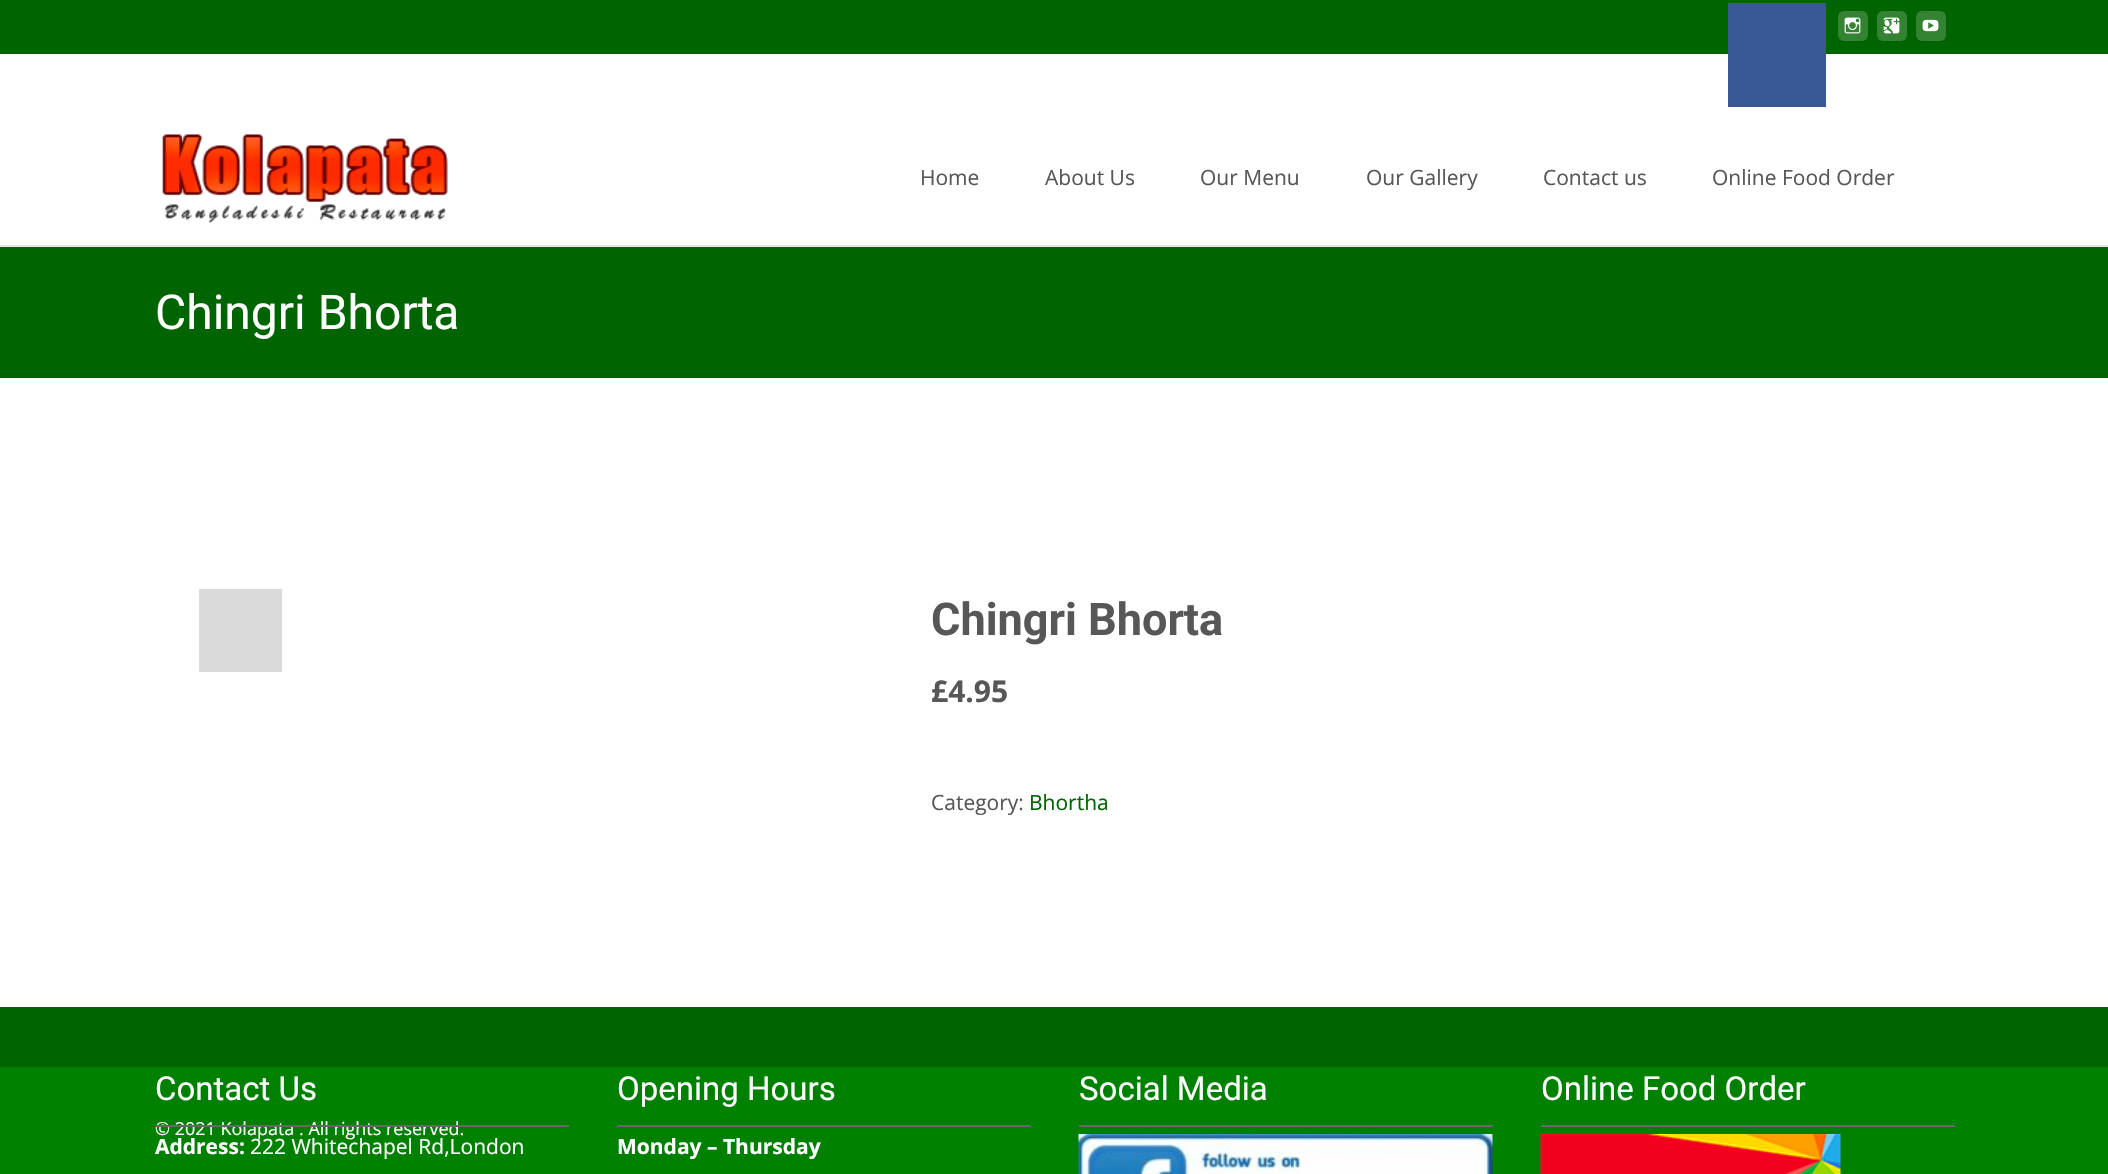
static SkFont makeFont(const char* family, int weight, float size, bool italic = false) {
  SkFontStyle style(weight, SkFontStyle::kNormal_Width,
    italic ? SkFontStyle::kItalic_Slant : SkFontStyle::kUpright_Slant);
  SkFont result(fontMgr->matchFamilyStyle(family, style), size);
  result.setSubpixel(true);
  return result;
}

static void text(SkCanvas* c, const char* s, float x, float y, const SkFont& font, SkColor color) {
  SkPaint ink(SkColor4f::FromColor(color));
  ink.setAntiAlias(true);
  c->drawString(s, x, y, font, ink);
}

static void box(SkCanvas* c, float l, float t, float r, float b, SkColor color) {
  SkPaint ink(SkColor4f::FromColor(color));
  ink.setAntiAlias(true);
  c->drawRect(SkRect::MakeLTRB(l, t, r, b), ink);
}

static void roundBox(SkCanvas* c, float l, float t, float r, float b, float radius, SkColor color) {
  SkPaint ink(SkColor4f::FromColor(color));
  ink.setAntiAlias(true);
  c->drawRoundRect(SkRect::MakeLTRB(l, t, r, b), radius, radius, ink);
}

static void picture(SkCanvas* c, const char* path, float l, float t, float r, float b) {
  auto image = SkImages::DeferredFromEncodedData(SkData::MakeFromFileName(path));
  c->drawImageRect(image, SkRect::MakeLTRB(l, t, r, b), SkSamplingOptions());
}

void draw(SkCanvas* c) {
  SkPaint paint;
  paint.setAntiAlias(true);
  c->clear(0xffffffff);
  box(c, 0, 0, 2108, 54, 0xff006400);
  box(c, 1728, 3, 1826, 107, 0xff3a5795);
  roundBox(c, 1838, 11, 1868, 41, 6, 0xff338333);
  picture(c, "img_01.png", 1844, 17, 1861, 34);
  roundBox(c, 1877, 11, 1907, 41, 6, 0xff338333);
  picture(c, "img_02.png", 1883, 17, 1900, 34);
  roundBox(c, 1916, 11, 1946, 41, 6, 0xff338333);
  picture(c, "img_03.png", 1922, 19, 1939, 32);
  box(c, 0, 245, 2108, 247, 0xffe7e7e7);
  picture(c, "img_04.png", 162, 134, 448, 223);
  SkFont face1 = makeFont("Open Sans", 400, 21);
  text(c, "Home", 920, 185, face1, 0xff575757);
  text(c, "About Us", 1045, 185, face1, 0xff575757);
  text(c, "Our Menu", 1200, 185, face1, 0xff575757);
  text(c, "Our Gallery", 1366, 185, face1, 0xff575757);
  text(c, "Contact us", 1543, 185, face1, 0xff575757);
  text(c, "Online Food Order", 1712, 185, face1, 0xff575757);
  box(c, 0, 247, 2108, 378, 0xff006400);
  SkFont face2 = makeFont("Roboto", 400, 48);
  text(c, "Chingri Bhorta", 155, 329, face2, 0xffffffff);
  box(c, 199, 589, 282, 672, 0xffdadada);
  SkFont face3 = makeFont("Roboto", 700, 45);
  text(c, "Chingri Bhorta", 931, 635, face3, 0xff575757);
  SkFont face4 = makeFont("Open Sans", 700, 30);
  text(c, "£4.95", 931, 702, face4, 0xff575757);
  text(c, "Category:", 931, 810, face1, 0xff575757);
  text(c, "Bhortha", 1029, 810, face1, 0xff006400);
  box(c, 0, 1067, 2108, 1174, 0xff008000);
  box(c, 0, 1007, 2108, 1067, 0xff006400);
  SkFont face5 = makeFont("Open Sans", 400, 18);
  text(c, "© 2021 Kolapata . All rights reserved.", 155, 1135, face5, 0xffffffff);
  box(c, 155, 1125, 569, 1127, 0xff676767);
  SkFont face6 = makeFont("Roboto", 400, 33);
  text(c, "Contact Us", 155, 1100, face6, 0xffffffff);
  SkFont face7 = makeFont("Open Sans", 700, 21);
  text(c, "Address:", 155, 1154, face7, 0xffffffff);
  text(c, "222 Whitechapel Rd,London", 250, 1154, face1, 0xffffffff);
  box(c, 617, 1125, 1031, 1127, 0xff676767);
  text(c, "Opening Hours", 617, 1100, face6, 0xffffffff);
  text(c, "Monday – Thursday", 617, 1154, face7, 0xffffffff);
  box(c, 1079, 1125, 1493, 1127, 0xff676767);
  text(c, "Social Media", 1079, 1100, face6, 0xffffffff);
  picture(c, "img_05.png", 1078, 1134, 1493, 1174);
  box(c, 1541, 1125, 1955, 1127, 0xff676767);
  text(c, "Online Food Order", 1541, 1100, face6, 0xffffffff);
  picture(c, "img_06.png", 1540, 1134, 1841, 1174);
}
